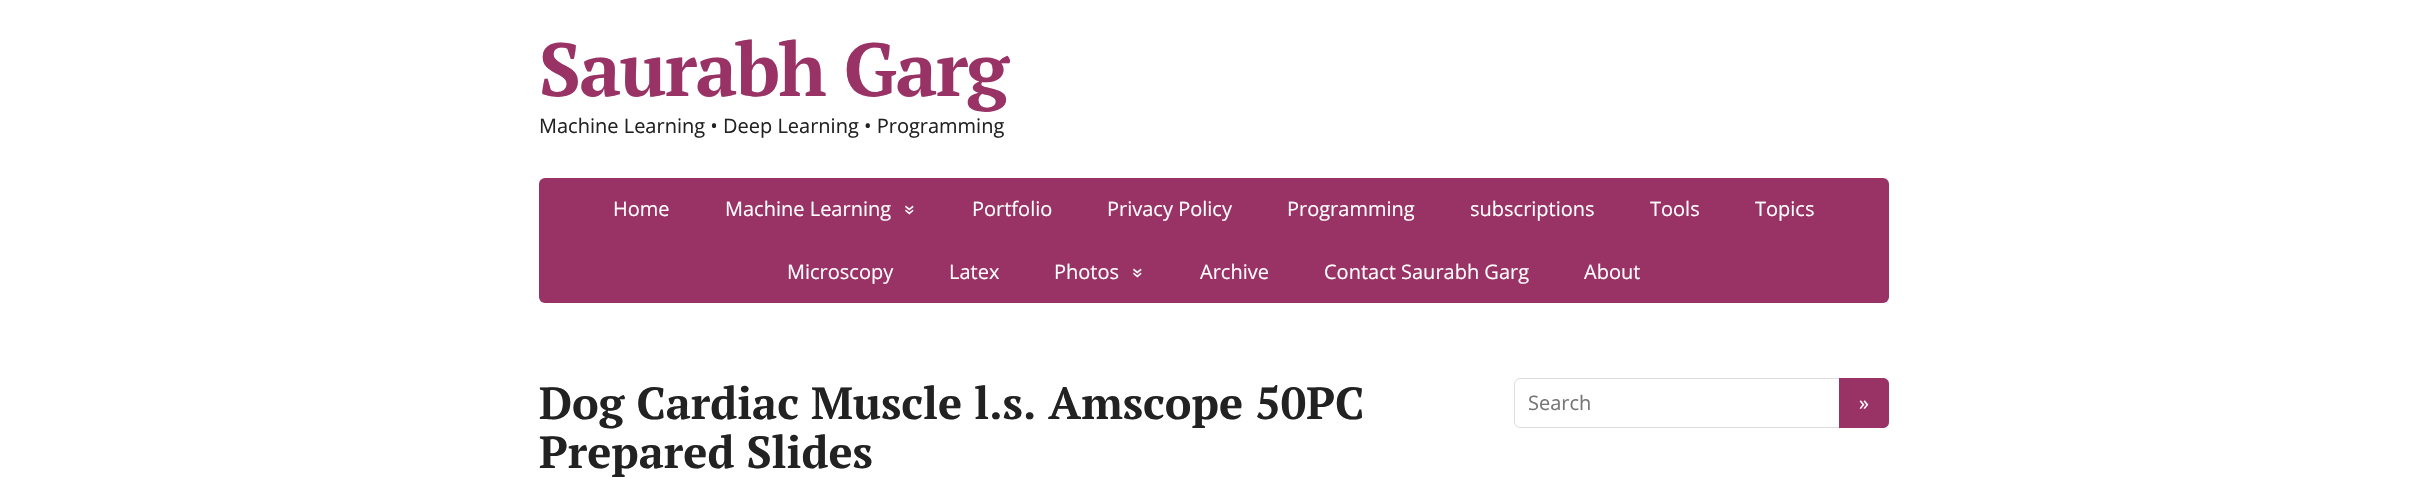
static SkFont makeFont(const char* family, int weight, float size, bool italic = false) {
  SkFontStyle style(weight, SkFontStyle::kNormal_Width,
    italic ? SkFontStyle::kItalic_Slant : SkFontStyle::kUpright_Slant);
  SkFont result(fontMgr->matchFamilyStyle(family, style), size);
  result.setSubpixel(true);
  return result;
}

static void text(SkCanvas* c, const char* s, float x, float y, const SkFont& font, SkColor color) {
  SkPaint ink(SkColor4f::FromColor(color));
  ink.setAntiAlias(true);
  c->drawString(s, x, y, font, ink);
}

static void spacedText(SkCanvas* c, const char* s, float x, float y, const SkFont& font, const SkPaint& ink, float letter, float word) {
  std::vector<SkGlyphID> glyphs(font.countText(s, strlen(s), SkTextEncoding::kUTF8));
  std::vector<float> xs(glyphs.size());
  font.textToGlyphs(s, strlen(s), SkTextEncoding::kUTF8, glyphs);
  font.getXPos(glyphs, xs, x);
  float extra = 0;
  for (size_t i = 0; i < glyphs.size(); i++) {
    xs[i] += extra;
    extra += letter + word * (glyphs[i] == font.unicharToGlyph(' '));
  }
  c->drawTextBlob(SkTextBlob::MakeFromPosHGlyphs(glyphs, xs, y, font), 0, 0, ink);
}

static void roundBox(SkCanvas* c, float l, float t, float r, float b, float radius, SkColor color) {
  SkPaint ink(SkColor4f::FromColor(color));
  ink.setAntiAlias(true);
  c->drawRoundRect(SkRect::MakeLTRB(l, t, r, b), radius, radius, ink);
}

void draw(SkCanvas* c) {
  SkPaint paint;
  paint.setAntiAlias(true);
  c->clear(0xffffffff);
  SkFont face1 = makeFont("PT Serif", 700, 75);
  paint.setColor(0xff993366);
  spacedText(c, "Saurabh Garg", 539, 96, face1, paint, -1.5f, 0);
  SkFont face2 = makeFont("Open Sans", 400, 20);
  text(c, "Machine Learning • Deep Learning • Programming", 539, 133, face2, 0xff222222);
  roundBox(c, 539, 178, 1889, 303, 6, 0xff993366);
  text(c, "Home", 613, 216, face2, 0xffffffff);
  text(c, "Machine Learning", 725, 216, face2, 0xffffffff);
  c->save();
  c->rotate(90, 904, 205);
  text(c, "»", 904, 205, face2, 0xffffffff);
  c->restore();
  text(c, "Portfolio", 972, 216, face2, 0xffffffff);
  text(c, "Privacy Policy", 1107, 216, face2, 0xffffffff);
  text(c, "Programming", 1287, 216, face2, 0xffffffff);
  text(c, "subscriptions", 1470, 216, face2, 0xffffffff);
  text(c, "Tools", 1650, 216, face2, 0xffffffff);
  text(c, "Topics", 1755, 216, face2, 0xffffffff);
  text(c, "Microscopy", 787, 279, face2, 0xffffffff);
  text(c, "Latex", 949, 279, face2, 0xffffffff);
  text(c, "Photos", 1054, 279, face2, 0xffffffff);
  c->save();
  c->rotate(90, 1132, 268);
  text(c, "»", 1132, 268, face2, 0xffffffff);
  c->restore();
  text(c, "Archive", 1200, 279, face2, 0xffffffff);
  text(c, "Contact Saurabh Garg", 1324, 279, face2, 0xffffffff);
  text(c, "About", 1584, 279, face2, 0xffffffff);
  SkFont face3 = makeFont("PT Serif", 700, 45);
  text(c, "Dog Cardiac Muscle l.s. Amscope 50PC", 539, 419, face3, 0xff222222);
  text(c, "Prepared Slides", 539, 468, face3, 0xff222222);
  paint.setStyle(SkPaint::kStroke_Style);
  paint.setStrokeWidth(1);
  paint.setColor(0xffdddddd);
  c->drawRoundRect(SkRect::MakeLTRB(1514.5f, 378.5f, 1878.5f, 427.5f), 5.5f, 5.5f, paint);
  text(c, "Search", 1528, 410, face2, 0xff757575);
  paint.setStyle(SkPaint::kFill_Style);
  paint.setColor(0xff993366);
  c->drawPath(SkPathBuilder().moveTo(1839, 378).lineTo(1883, 378).cubicTo(1886.5f, 378, 1889, 380.5f, 1889, 384).lineTo(1889, 422).cubicTo(1889, 425.5f, 1886.5f, 428, 1883, 428).lineTo(1839, 428).close().detach(), paint);
  text(c, "»", 1859, 410, face2, 0xffffffff);
}
